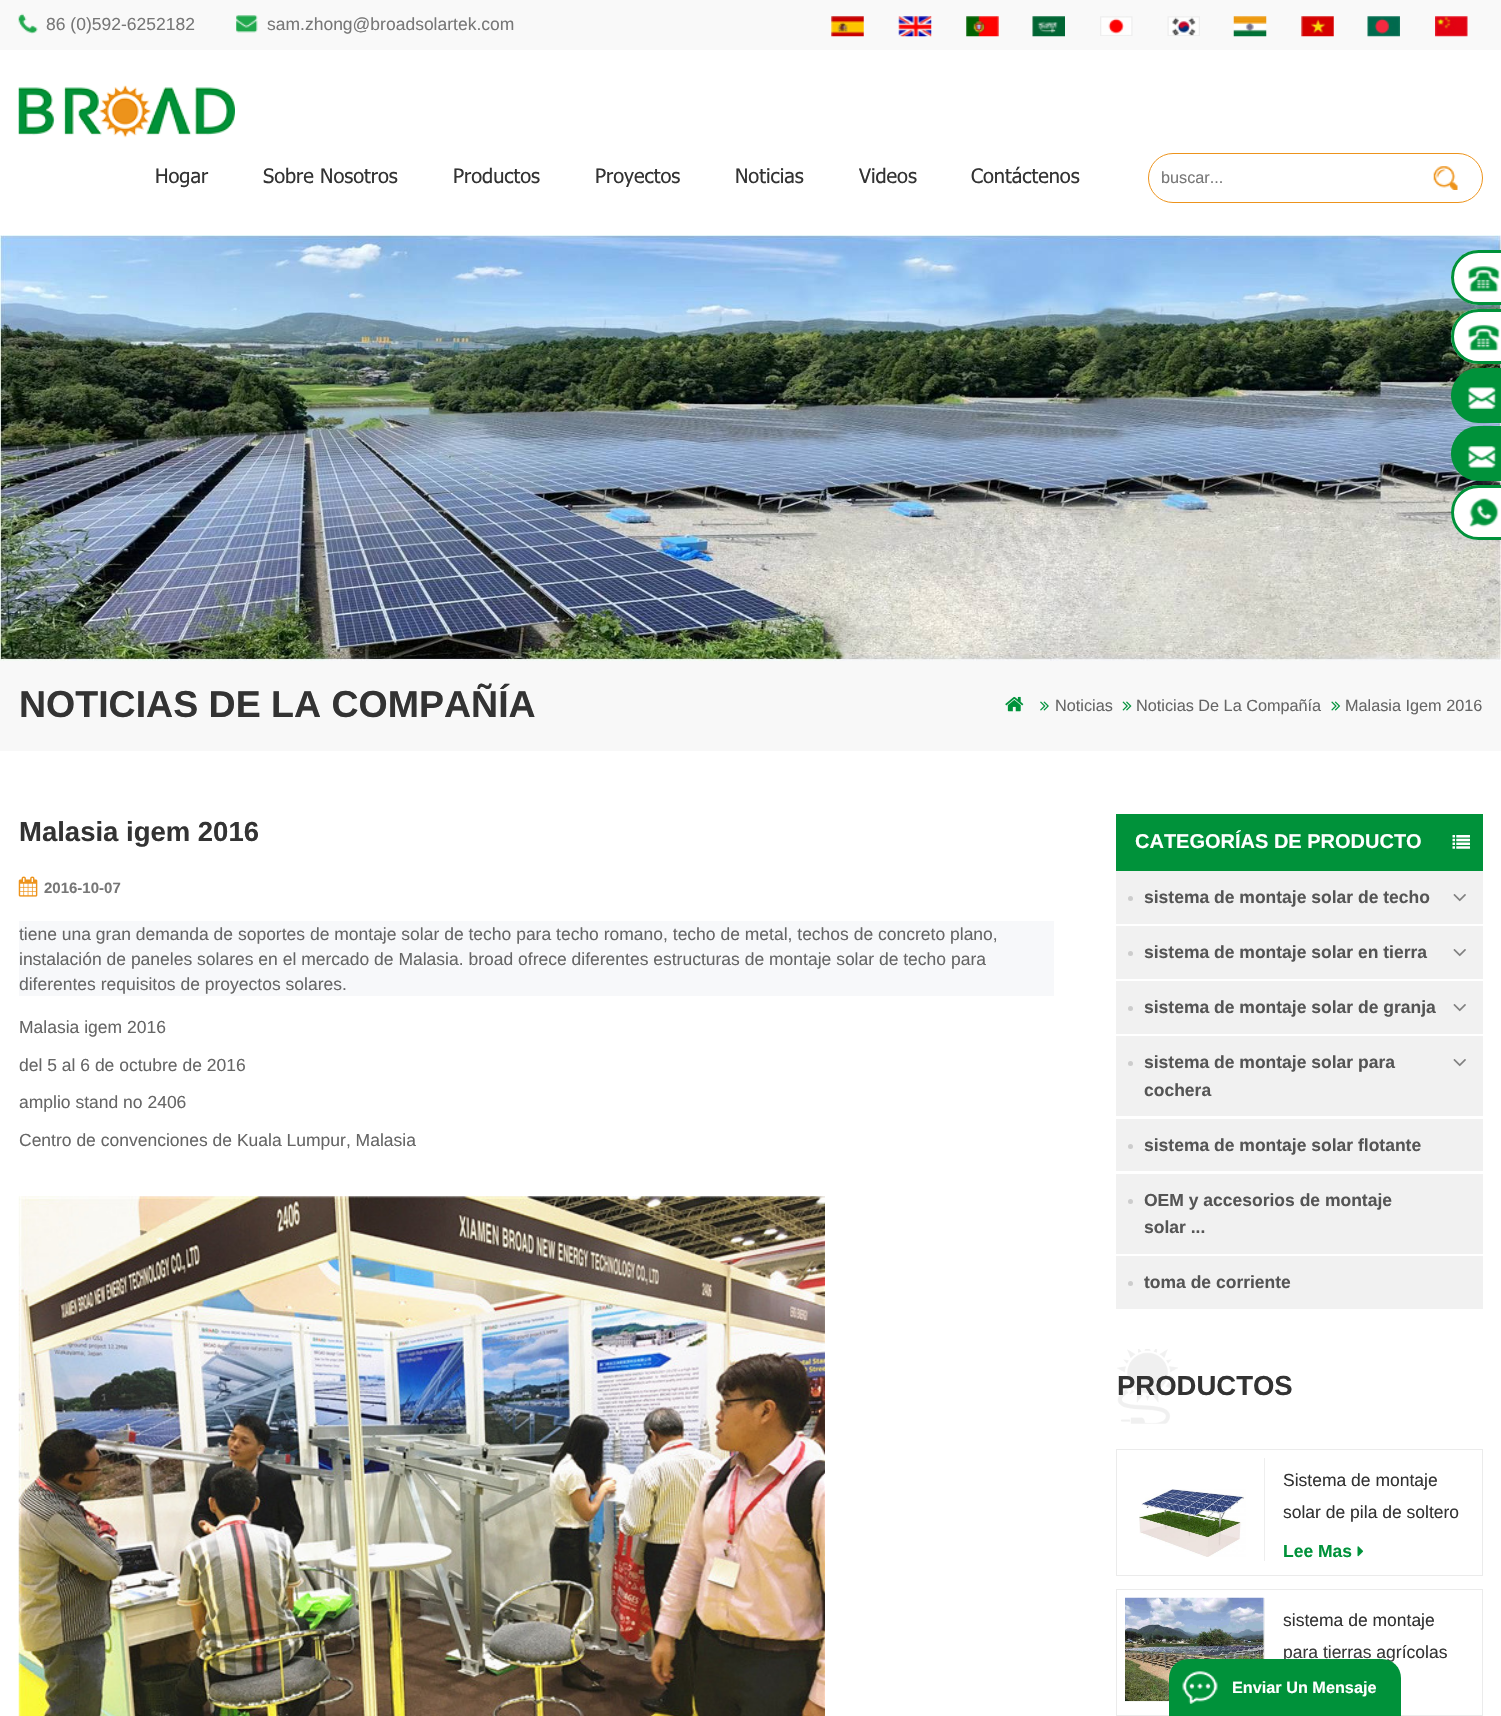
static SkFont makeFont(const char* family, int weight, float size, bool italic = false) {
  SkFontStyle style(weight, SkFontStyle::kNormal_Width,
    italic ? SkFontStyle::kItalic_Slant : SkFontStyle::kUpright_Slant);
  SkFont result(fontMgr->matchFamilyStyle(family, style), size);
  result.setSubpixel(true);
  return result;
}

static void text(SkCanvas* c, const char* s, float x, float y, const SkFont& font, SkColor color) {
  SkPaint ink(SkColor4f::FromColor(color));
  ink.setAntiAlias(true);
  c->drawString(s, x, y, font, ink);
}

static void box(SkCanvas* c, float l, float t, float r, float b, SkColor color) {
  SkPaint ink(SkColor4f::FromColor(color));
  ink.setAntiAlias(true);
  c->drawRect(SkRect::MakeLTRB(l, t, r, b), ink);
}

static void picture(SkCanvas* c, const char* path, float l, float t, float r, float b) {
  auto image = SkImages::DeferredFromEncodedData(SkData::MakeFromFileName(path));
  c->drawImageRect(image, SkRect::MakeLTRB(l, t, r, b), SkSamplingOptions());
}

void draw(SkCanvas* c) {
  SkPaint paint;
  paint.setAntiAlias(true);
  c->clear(0xffffffff);
  box(c, 0, 0, 1501, 50, 0xfff9f9f9);
  picture(c, "img_01.png", 18, 13, 38, 34);
  SkFont face1 = makeFont("Liberation Sans", 400, 17.5f);
  text(c, "86 (0)592-6252182", 46, 30, face1, 0xff777777);
  picture(c, "img_02.png", 236, 15, 258, 33);
  text(c, "sam.zhong@broadsolartek.com", 267, 30, face1, 0xff777777);
  picture(c, "img_03.png", 831, 16, 864, 37);
  picture(c, "img_04.png", 898, 16, 932, 37);
  picture(c, "img_05.png", 966, 16, 999, 37);
  picture(c, "img_06.png", 1032, 16, 1065, 37);
  picture(c, "img_07.png", 1100, 16, 1133, 36);
  picture(c, "img_08.png", 1167, 16, 1200, 36);
  picture(c, "img_09.png", 1233, 16, 1267, 37);
  picture(c, "img_10.png", 1301, 16, 1334, 37);
  picture(c, "img_11.png", 1367, 16, 1400, 37);
  picture(c, "img_12.png", 1435, 16, 1468, 37);
  picture(c, "img_13.png", 18, 85, 235, 138);
  SkFont face2 = makeFont("Tahoma", 400, 20);
  text(c, "Hogar", 155, 183, face2, 0xff333333);
  text(c, "Sobre Nosotros", 263, 183, face2, 0xff333333);
  text(c, "Productos", 453, 183, face2, 0xff333333);
  text(c, "Proyectos", 595, 183, face2, 0xff333333);
  text(c, "Noticias", 735, 183, face2, 0xff333333);
  text(c, "Videos", 859, 183, face2, 0xff333333);
  text(c, "Contáctenos", 971, 183, face2, 0xff333333);
  paint.setStyle(SkPaint::kStroke_Style);
  paint.setStrokeWidth(1);
  paint.setColor(0xffed931b);
  c->drawRoundRect(SkRect::MakeLTRB(1148.5f, 153.5f, 1482.5f, 202.5f), 24.5f, 24.5f, paint);
  SkFont face3 = makeFont("Liberation Sans", 400, 16.25f);
  text(c, "buscar...", 1161, 183, face3, 0xff777777);
  picture(c, "img_14.png", 1433, 166, 1458, 190);
  picture(c, "img_15.png", 0, 235, 1501, 661);
  paint.setStyle(SkPaint::kFill_Style);
  paint.setColor(0xffffffff);
  c->drawPath(SkPathBuilder().moveTo(1478.5f, 250).lineTo(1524, 250).cubicTo(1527, 250, 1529, 252, 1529, 255).lineTo(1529, 300).cubicTo(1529, 303, 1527, 305, 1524, 305).lineTo(1478.5f, 305).cubicTo(1463.5f, 305, 1451, 292.5f, 1451, 277.5f).cubicTo(1451, 262.5f, 1463.5f, 250, 1478.5f, 250).close().detach(), paint);
  picture(c, "img_16.png", 1468, 266, 1500, 292);
  paint.setStyle(SkPaint::kStroke_Style);
  paint.setStrokeWidth(3);
  paint.setColor(0xff00923a);
  c->drawPath(SkPathBuilder().moveTo(1478.5f, 251.5f).lineTo(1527, 251.5f).cubicTo(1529, 251.5f, 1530.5f, 253, 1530.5f, 255).lineTo(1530.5f, 300).cubicTo(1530.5f, 302, 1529, 303.5f, 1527, 303.5f).lineTo(1478.5f, 303.5f).cubicTo(1464, 303.5f, 1452.5f, 292, 1452.5f, 277.5f).cubicTo(1452.5f, 263, 1464, 251.5f, 1478.5f, 251.5f).close().detach(), paint);
  paint.setStyle(SkPaint::kFill_Style);
  paint.setColor(0xffffffff);
  c->drawPath(SkPathBuilder().moveTo(1478.5f, 309).lineTo(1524, 309).cubicTo(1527, 309, 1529, 311, 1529, 314).lineTo(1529, 359).cubicTo(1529, 362, 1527, 364, 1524, 364).lineTo(1478.5f, 364).cubicTo(1463.5f, 364, 1451, 351.5f, 1451, 336.5f).cubicTo(1451, 321.5f, 1463.5f, 309, 1478.5f, 309).close().detach(), paint);
  picture(c, "img_17.png", 1468, 324, 1500, 351);
  paint.setStyle(SkPaint::kStroke_Style);
  paint.setColor(0xff00923a);
  c->drawPath(SkPathBuilder().moveTo(1478.5f, 310.5f).lineTo(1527, 310.5f).cubicTo(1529, 310.5f, 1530.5f, 312, 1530.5f, 314).lineTo(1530.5f, 359).cubicTo(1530.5f, 361, 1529, 362.5f, 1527, 362.5f).lineTo(1478.5f, 362.5f).cubicTo(1464, 362.5f, 1452.5f, 351, 1452.5f, 336.5f).cubicTo(1452.5f, 322, 1464, 310.5f, 1478.5f, 310.5f).close().detach(), paint);
  paint.setStyle(SkPaint::kFill_Style);
  c->drawPath(SkPathBuilder().moveTo(1478.5f, 368).lineTo(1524, 368).cubicTo(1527, 368, 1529, 370, 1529, 373).lineTo(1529, 418).cubicTo(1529, 421, 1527, 423, 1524, 423).lineTo(1478.5f, 423).cubicTo(1463.5f, 423, 1451, 410.5f, 1451, 395.5f).cubicTo(1451, 380.5f, 1463.5f, 368, 1478.5f, 368).close().detach(), paint);
  picture(c, "img_18.png", 1468, 387, 1496, 409);
  c->drawPath(SkPathBuilder().moveTo(1478.5f, 426).lineTo(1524, 426).cubicTo(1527, 426, 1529, 428, 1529, 431).lineTo(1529, 476).cubicTo(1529, 479, 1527, 481, 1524, 481).lineTo(1478.5f, 481).cubicTo(1463.5f, 481, 1451, 468.5f, 1451, 453.5f).cubicTo(1451, 438.5f, 1463.5f, 426, 1478.5f, 426).close().detach(), paint);
  picture(c, "img_19.png", 1468, 446, 1496, 468);
  paint.setColor(0xffffffff);
  c->drawPath(SkPathBuilder().moveTo(1478.5f, 485).lineTo(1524, 485).cubicTo(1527, 485, 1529, 487, 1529, 490).lineTo(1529, 535).cubicTo(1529, 538, 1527, 540, 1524, 540).lineTo(1478.5f, 540).cubicTo(1463.5f, 540, 1451, 527.5f, 1451, 512.5f).cubicTo(1451, 497.5f, 1463.5f, 485, 1478.5f, 485).close().detach(), paint);
  picture(c, "img_20.png", 1469, 498, 1499, 527);
  paint.setStyle(SkPaint::kStroke_Style);
  paint.setColor(0xff00923a);
  c->drawPath(SkPathBuilder().moveTo(1478.5f, 486.5f).lineTo(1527, 486.5f).cubicTo(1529, 486.5f, 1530.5f, 488, 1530.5f, 490).lineTo(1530.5f, 535).cubicTo(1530.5f, 537, 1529, 538.5f, 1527, 538.5f).lineTo(1478.5f, 538.5f).cubicTo(1464, 538.5f, 1452.5f, 527, 1452.5f, 512.5f).cubicTo(1452.5f, 498, 1464, 486.5f, 1478.5f, 486.5f).close().detach(), paint);
  box(c, 0, 661, 1501, 751, 0xfff8f8f8);
  SkFont face4 = makeFont("Liberation Sans", 700, 37.5f);
  text(c, "NOTICIAS DE LA COMPAÑÍA", 19, 717, face4, 0xff333333);
  picture(c, "img_21.png", 1005, 696, 1024, 712);
  picture(c, "img_22.png", 1040, 701, 1049, 711);
  text(c, "Noticias", 1055, 711, face3, 0xff666666);
  picture(c, "img_23.png", 1122, 701, 1132, 711);
  text(c, "Noticias De La Compañía", 1136, 711, face3, 0xff666666);
  picture(c, "img_24.png", 1331, 701, 1341, 711);
  text(c, "Malasia Igem 2016", 1345, 711, face3, 0xff666666);
  SkFont face5 = makeFont("Liberation Sans", 700, 27.5f);
  text(c, "Malasia igem 2016", 19, 841, face5, 0xff333333);
  picture(c, "img_25.png", 18, 876, 38, 897);
  SkFont face6 = makeFont("Liberation Sans", 700, 15);
  text(c, "2016-10-07", 44, 893, face6, 0xff777777);
  box(c, 19, 921, 1054, 996, 0xfff7f8fa);
  text(c, "tiene una gran demanda de soportes de montaje solar de techo para techo romano, techo de metal, techos de concreto plano,", 19, 940, face1, 0xff666666);
  text(c, "instalación de paneles solares en el mercado de Malasia. broad ofrece diferentes estructuras de montaje solar de techo para", 19, 965, face1, 0xff666666);
  text(c, "diferentes requisitos de proyectos solares.", 19, 990, face1, 0xff666666);
  text(c, "Malasia igem 2016", 19, 1033, face1, 0xff666666);
  text(c, "del 5 al 6 de octubre de 2016", 19, 1071, face1, 0xff666666);
  text(c, "amplio stand no 2406", 19, 1108, face1, 0xff666666);
  text(c, "Centro de convenciones de Kuala Lumpur, Malasia", 19, 1146, face1, 0xff666666);
  picture(c, "img_26.png", 18, 1196, 825, 1716);
  box(c, 1116, 814, 1483, 871, 0xff00923a);
  SkFont face7 = makeFont("Liberation Sans", 700, 20);
  text(c, "CATEGORÍAS DE PRODUCTO", 1135, 848, face7, 0xffffffff);
  picture(c, "img_27.png", 1452, 835, 1470, 849);
  box(c, 1116, 871, 1483, 924, 0xfff1f1f1);
  paint.setStyle(SkPaint::kFill_Style);
  paint.setColor(0xffcccccc);
  c->drawCircle(1130.5f, 898.5f, 2.5f, paint);
  SkFont face8 = makeFont("Liberation Sans", 700, 17.5f);
  text(c, "sistema de montaje solar de techo", 1144, 903, face8, 0xff555555);
  picture(c, "img_28.png", 1453, 894, 1466, 902);
  box(c, 1116, 926, 1483, 979, 0xfff1f1f1);
  c->drawCircle(1130.5f, 953.5f, 2.5f, paint);
  text(c, "sistema de montaje solar en tierra", 1144, 958, face8, 0xff555555);
  picture(c, "img_28.png", 1453, 949, 1466, 957);
  box(c, 1116, 981, 1483, 1034, 0xfff1f1f1);
  c->drawCircle(1130.5f, 1008.5f, 2.5f, paint);
  text(c, "sistema de montaje solar de granja", 1144, 1013, face8, 0xff555555);
  picture(c, "img_28.png", 1453, 1004, 1466, 1012);
  box(c, 1116, 1036, 1483, 1116, 0xfff1f1f1);
  c->drawCircle(1130.5f, 1063.5f, 2.5f, paint);
  text(c, "sistema de montaje solar para", 1144, 1068, face8, 0xff555555);
  text(c, "cochera", 1144, 1096, face8, 0xff555555);
  picture(c, "img_28.png", 1453, 1059, 1466, 1067);
  box(c, 1116, 1119, 1483, 1171, 0xfff1f1f1);
  c->drawCircle(1130.5f, 1146.5f, 2.5f, paint);
  text(c, "sistema de montaje solar flotante", 1144, 1151, face8, 0xff555555);
  box(c, 1116, 1174, 1483, 1254, 0xfff1f1f1);
  c->drawCircle(1130.5f, 1201.5f, 2.5f, paint);
  text(c, "OEM y accesorios de montaje", 1144, 1206, face8, 0xff555555);
  text(c, "solar ...", 1144, 1233, face8, 0xff555555);
  box(c, 1116, 1256, 1483, 1309, 0xfff1f1f1);
  c->drawCircle(1130.5f, 1283.5f, 2.5f, paint);
  text(c, "toma de corriente", 1144, 1288, face8, 0xff555555);
  picture(c, "img_29.png", 1117, 1349, 1178, 1424);
  text(c, "PRODUCTOS", 1117, 1395, face5, 0xff333333);
  paint.setStyle(SkPaint::kStroke_Style);
  paint.setStrokeWidth(1);
  paint.setColor(0xffebebeb);
  c->drawRect(SkRect::MakeLTRB(1116.5f, 1449.5f, 1482.5f, 1575.5f), paint);
  box(c, 1264, 1458, 1265, 1561, 0xffeeeeee);
  picture(c, "img_30.png", 1139, 1489, 1246, 1557);
  text(c, "Sistema de montaje", 1283, 1486, face1, 0xff333333);
  text(c, "solar de pila de soltero", 1283, 1518, face1, 0xff333333);
  text(c, "Lee Mas", 1283, 1557, face8, 0xff00923a);
  picture(c, "img_31.png", 1357, 1546, 1364, 1557);
  c->drawRect(SkRect::MakeLTRB(1116.5f, 1589.5f, 1482.5f, 1715.5f), paint);
  box(c, 1264, 1598, 1265, 1659, 0xffeeeeee);
  picture(c, "img_32.png", 1125, 1597, 1264, 1702);
  text(c, "sistema de montaje", 1283, 1626, face1, 0xff333333);
  text(c, "para tierras agrícolas", 1283, 1658, face1, 0xff333333);
  paint.setStyle(SkPaint::kFill_Style);
  paint.setColor(0x33ffffff);
  paint.setMaskFilter(SkMaskFilter::MakeBlur(kNormal_SkBlurStyle, 6));
  c->drawRoundRect(SkRect::MakeLTRB(1169, 1659, 1401, 1716), 19, 19, paint);
  paint.setMaskFilter(nullptr);
  paint.setColor(0xff00923a);
  c->drawPath(SkPathBuilder().moveTo(1188, 1659).lineTo(1382, 1659).cubicTo(1392.5f, 1659, 1401, 1667.5f, 1401, 1678).lineTo(1401, 1716).lineTo(1169, 1716).lineTo(1169, 1678).cubicTo(1169, 1667.5f, 1177.5f, 1659, 1188, 1659).close().detach(), paint);
  picture(c, "img_33.png", 1182, 1671, 1218, 1704);
  SkFont face9 = makeFont("Liberation Sans", 700, 16.25f);
  text(c, "Enviar Un Mensaje", 1232, 1693, face9, 0xffffffff);
}
